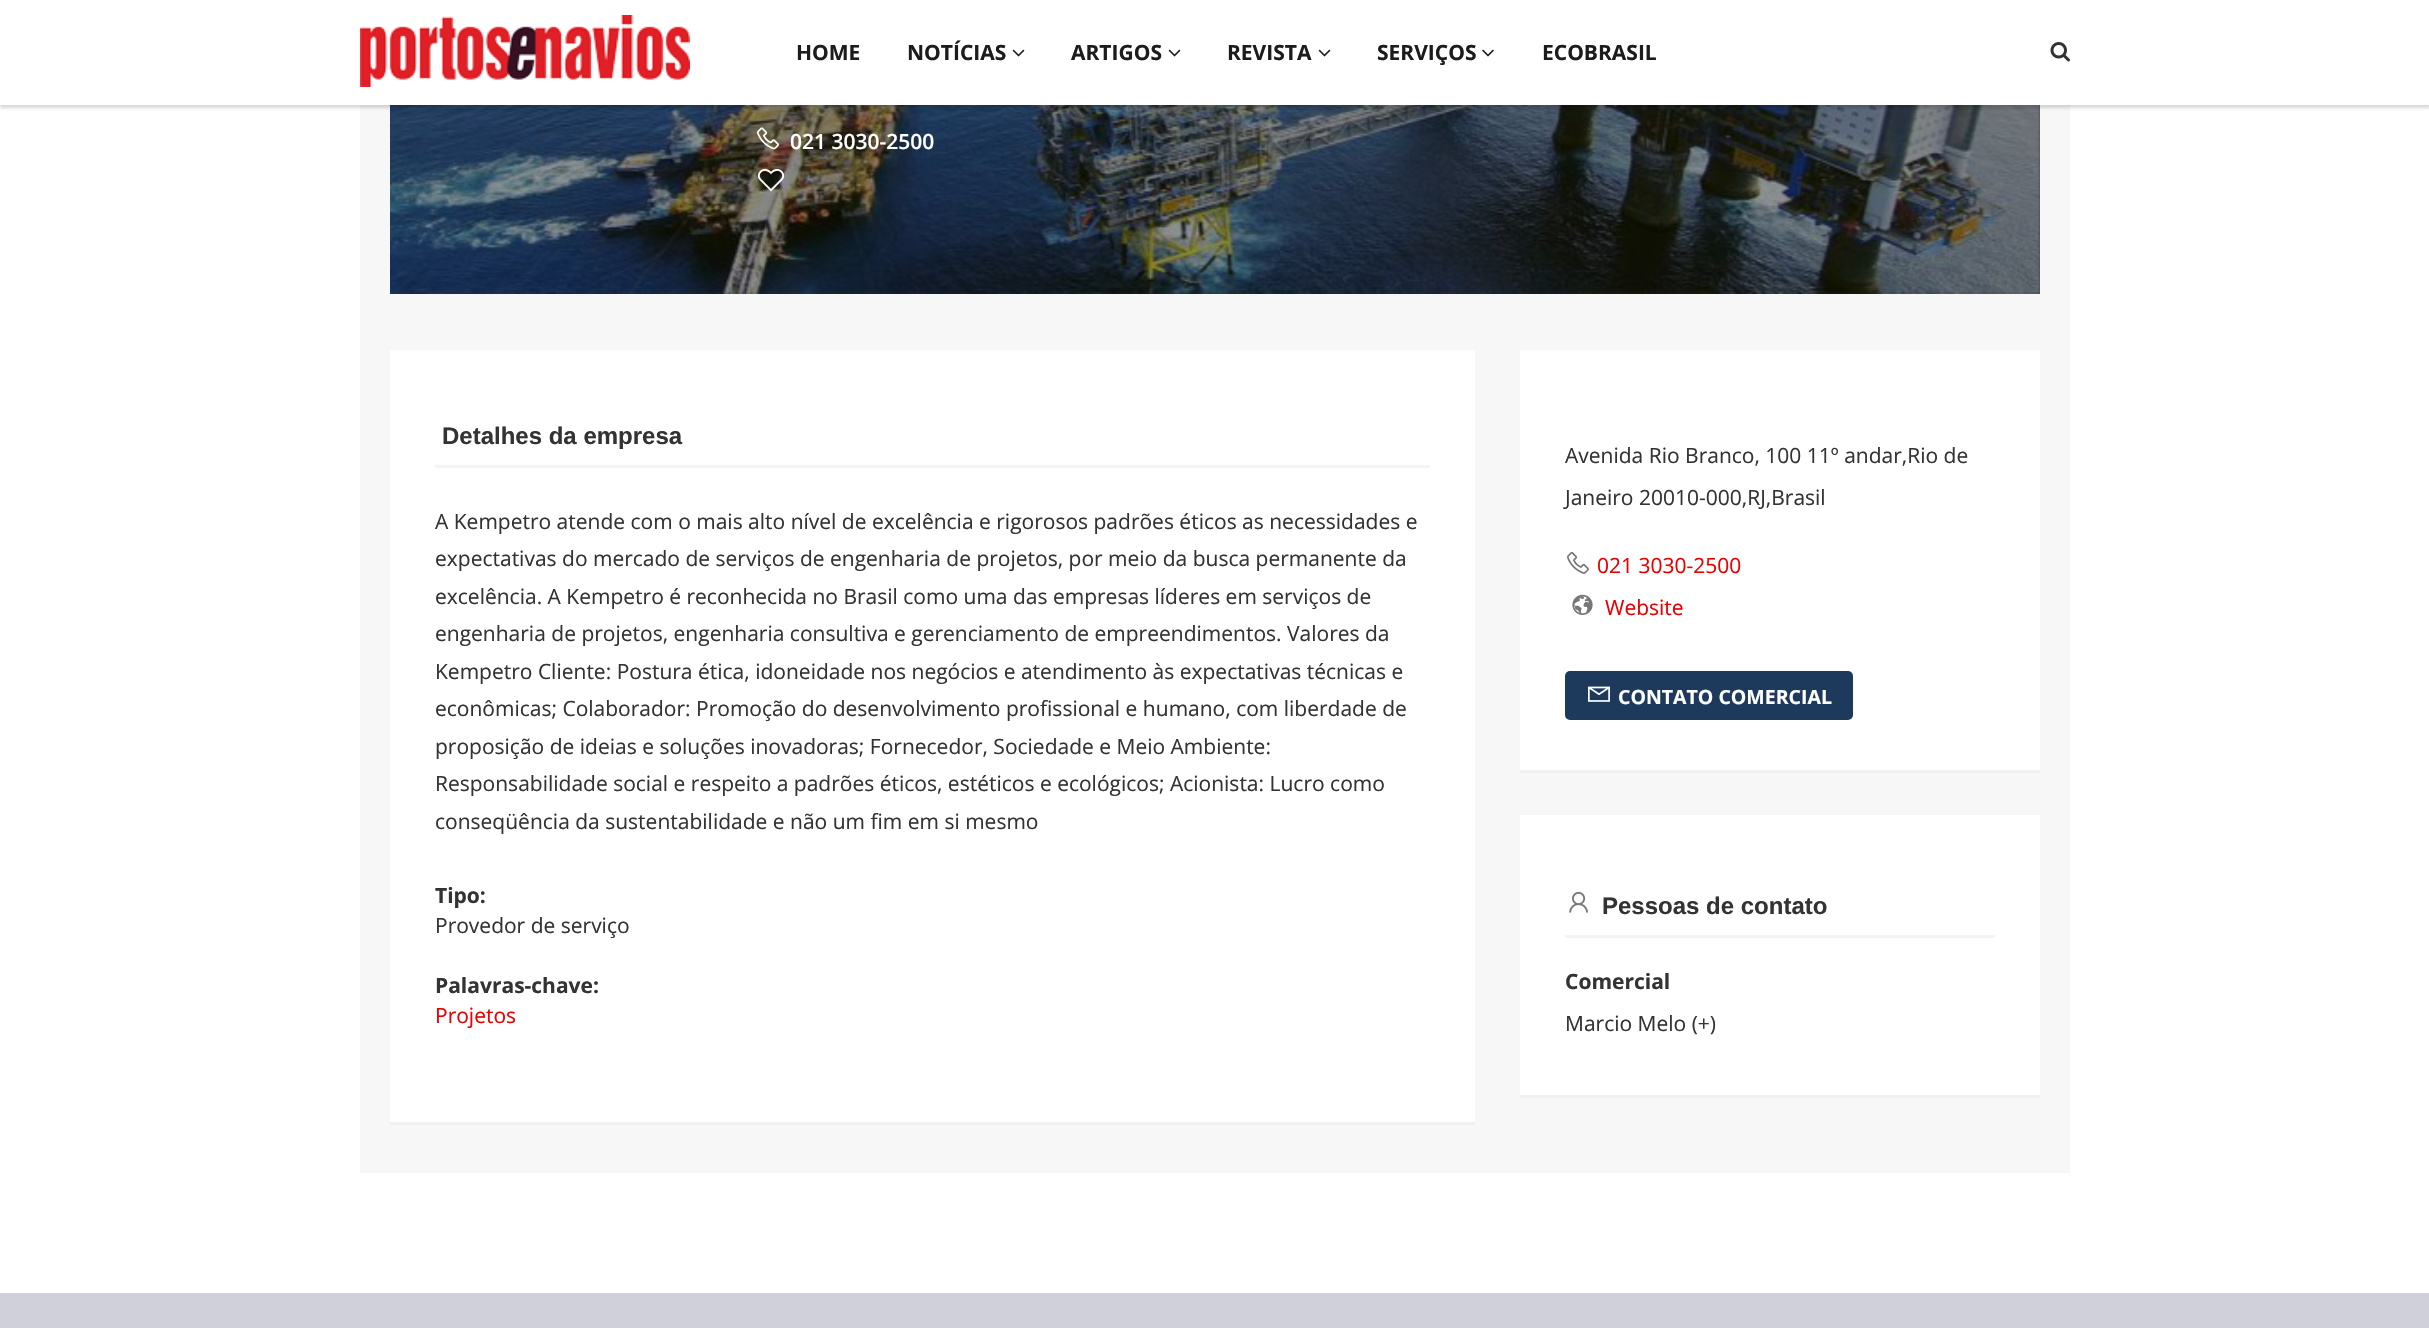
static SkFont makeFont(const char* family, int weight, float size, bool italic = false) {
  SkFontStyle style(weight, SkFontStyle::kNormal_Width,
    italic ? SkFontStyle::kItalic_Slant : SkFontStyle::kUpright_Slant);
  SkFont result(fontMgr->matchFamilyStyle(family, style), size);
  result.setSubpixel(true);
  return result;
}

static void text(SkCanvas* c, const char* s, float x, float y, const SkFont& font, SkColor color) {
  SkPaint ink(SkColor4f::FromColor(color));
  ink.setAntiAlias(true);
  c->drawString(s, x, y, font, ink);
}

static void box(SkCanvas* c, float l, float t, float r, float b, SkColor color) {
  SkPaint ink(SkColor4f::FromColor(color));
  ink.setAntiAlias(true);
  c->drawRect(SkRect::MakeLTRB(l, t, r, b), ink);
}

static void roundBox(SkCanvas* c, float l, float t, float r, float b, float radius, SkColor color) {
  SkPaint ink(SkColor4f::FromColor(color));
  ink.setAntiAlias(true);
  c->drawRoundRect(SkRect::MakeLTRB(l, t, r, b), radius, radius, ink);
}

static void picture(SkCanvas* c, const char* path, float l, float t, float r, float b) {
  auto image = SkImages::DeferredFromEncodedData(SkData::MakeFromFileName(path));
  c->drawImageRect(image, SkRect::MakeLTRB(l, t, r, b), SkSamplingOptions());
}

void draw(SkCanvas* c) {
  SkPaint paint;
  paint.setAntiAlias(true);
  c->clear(0xffffffff);
  box(c, 360, 105, 2070, 1173, 0xfff7f7f7);
  box(c, 390, 105, 2040, 294, 0xff2f3234);
  picture(c, "img_05.png", 390, 105, 2040, 294);
  paint.setColor(0x26000000);
  paint.setMaskFilter(SkMaskFilter::MakeBlur(kNormal_SkBlurStyle, 1.5f));
  c->drawRect(SkRect::MakeLTRB(0, 3, 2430, 108), paint);
  paint.setMaskFilter(nullptr);
  box(c, 0, 1, 2429, 105, 0xffffffff);
  picture(c, "img_01.png", 360, 15, 690, 87);
  SkFont face1 = makeFont("Open Sans", 700, 21);
  text(c, "HOME", 796, 60, face1, 0xff1c1c1c);
  text(c, "NOTÍCIAS", 907, 60, face1, 0xff1c1c1c);
  picture(c, "img_02.png", 1012, 49, 1025, 57);
  text(c, "ARTIGOS", 1071, 60, face1, 0xff1c1c1c);
  picture(c, "img_02.png", 1168, 49, 1181, 57);
  text(c, "REVISTA", 1227, 60, face1, 0xff1c1c1c);
  picture(c, "img_02.png", 1318, 49, 1331, 57);
  text(c, "SERVIÇOS", 1377, 60, face1, 0xff1c1c1c);
  picture(c, "img_03.png", 1482, 49, 1494, 57);
  text(c, "ECOBRASIL", 1542, 60, face1, 0xff1c1c1c);
  picture(c, "img_04.png", 2050, 42, 2070, 62);
  picture(c, "img_06.png", 757, 127, 779, 150);
  SkFont face2 = makeFont("Open Sans", 600, 21);
  text(c, "021 3030-2500", 790, 149, face2, 0xffffffff);
  picture(c, "img_07.png", 757, 168, 785, 192);
  paint.setColor(0xfff0f0f0);
  c->drawPath(SkPathBuilder().moveTo(390, 1122).lineTo(390, 1125).lineTo(1475, 1125).lineTo(1475, 353).lineTo(1474, 353).lineTo(1474, 1122).close().detach(), paint);
  box(c, 390, 350, 1475, 1122, 0xffffffff);
  box(c, 435, 465, 1430, 468, 0xfff4f4f4);
  SkFont face3 = makeFont("Arimo", 700, 24);
  text(c, "Detalhes da empresa", 442, 444, face3, 0xff333333);
  SkFont face4 = makeFont("Open Sans", 400, 21);
  text(c, "A Kempetro atende com o mais alto nível de excelência e rigorosos padrões éticos as necessidades e", 435, 529, face4, 0xff333333);
  text(c, "expectativas do mercado de serviços de engenharia de projetos, por meio da busca permanente da", 435, 566, face4, 0xff333333);
  text(c, "excelência. A Kempetro é reconhecida no Brasil como uma das empresas líderes em serviços de", 435, 604, face4, 0xff333333);
  text(c, "engenharia de projetos, engenharia consultiva e gerenciamento de empreendimentos. Valores da", 435, 641, face4, 0xff333333);
  text(c, "Kempetro Cliente: Postura ética, idoneidade nos negócios e atendimento às expectativas técnicas e", 435, 679, face4, 0xff333333);
  text(c, "econômicas; Colaborador: Promoção do desenvolvimento profissional e humano, com liberdade de", 435, 716, face4, 0xff333333);
  text(c, "proposição de ideias e soluções inovadoras; Fornecedor, Sociedade e Meio Ambiente:", 435, 754, face4, 0xff333333);
  text(c, "Responsabilidade social e respeito a padrões éticos, estéticos e ecológicos; Acionista: Lucro como", 435, 791, face4, 0xff333333);
  text(c, "conseqüência da sustentabilidade e não um fim em si mesmo", 435, 829, face4, 0xff333333);
  text(c, "Tipo:", 435, 903, face1, 0xff333333);
  text(c, "Provedor de serviço", 435, 933, face4, 0xff333333);
  text(c, "Palavras-chave:", 435, 993, face1, 0xff333333);
  text(c, "Projetos", 435, 1023, face4, 0xffec0000);
  box(c, 1520, 770, 2040, 773, 0xfff0f0f0);
  box(c, 1520, 350, 2040, 770, 0xffffffff);
  text(c, "Avenida Rio Branco, 100 11º andar,Rio de", 1565, 463, face4, 0xff333333);
  text(c, "Janeiro 20010-000,RJ,Brasil", 1565, 505, face4, 0xff333333);
  picture(c, "img_08.png", 1567, 551, 1589, 574);
  text(c, "021 3030-2500", 1597, 573, face4, 0xffec0000);
  picture(c, "img_09.png", 1572, 594, 1593, 615);
  text(c, "Website", 1605, 615, face4, 0xffec0000);
  roundBox(c, 1565, 671, 1853, 720, 5, 0xff1d3a5c);
  picture(c, "img_10.png", 1588, 686, 1610, 702);
  SkFont face5 = makeFont("Open Sans", 700, 19.5f);
  text(c, "CONTATO COMERCIAL", 1618, 704, face5, 0xffffffff);
  box(c, 1520, 1095, 2040, 1098, 0xfff0f0f0);
  box(c, 1520, 815, 2040, 1095, 0xffffffff);
  box(c, 1565, 935, 1995, 938, 0xfff4f4f4);
  picture(c, "img_11.png", 1569, 891, 1588, 913);
  text(c, "Pessoas de contato", 1602, 914, face3, 0xff333333);
  text(c, "Comercial", 1565, 989, face1, 0xff333333);
  text(c, "Marcio Melo (+)", 1565, 1031, face4, 0xff333333);
  box(c, 0, 1293, 2429, 1328, 0xffd0d0db);
}
